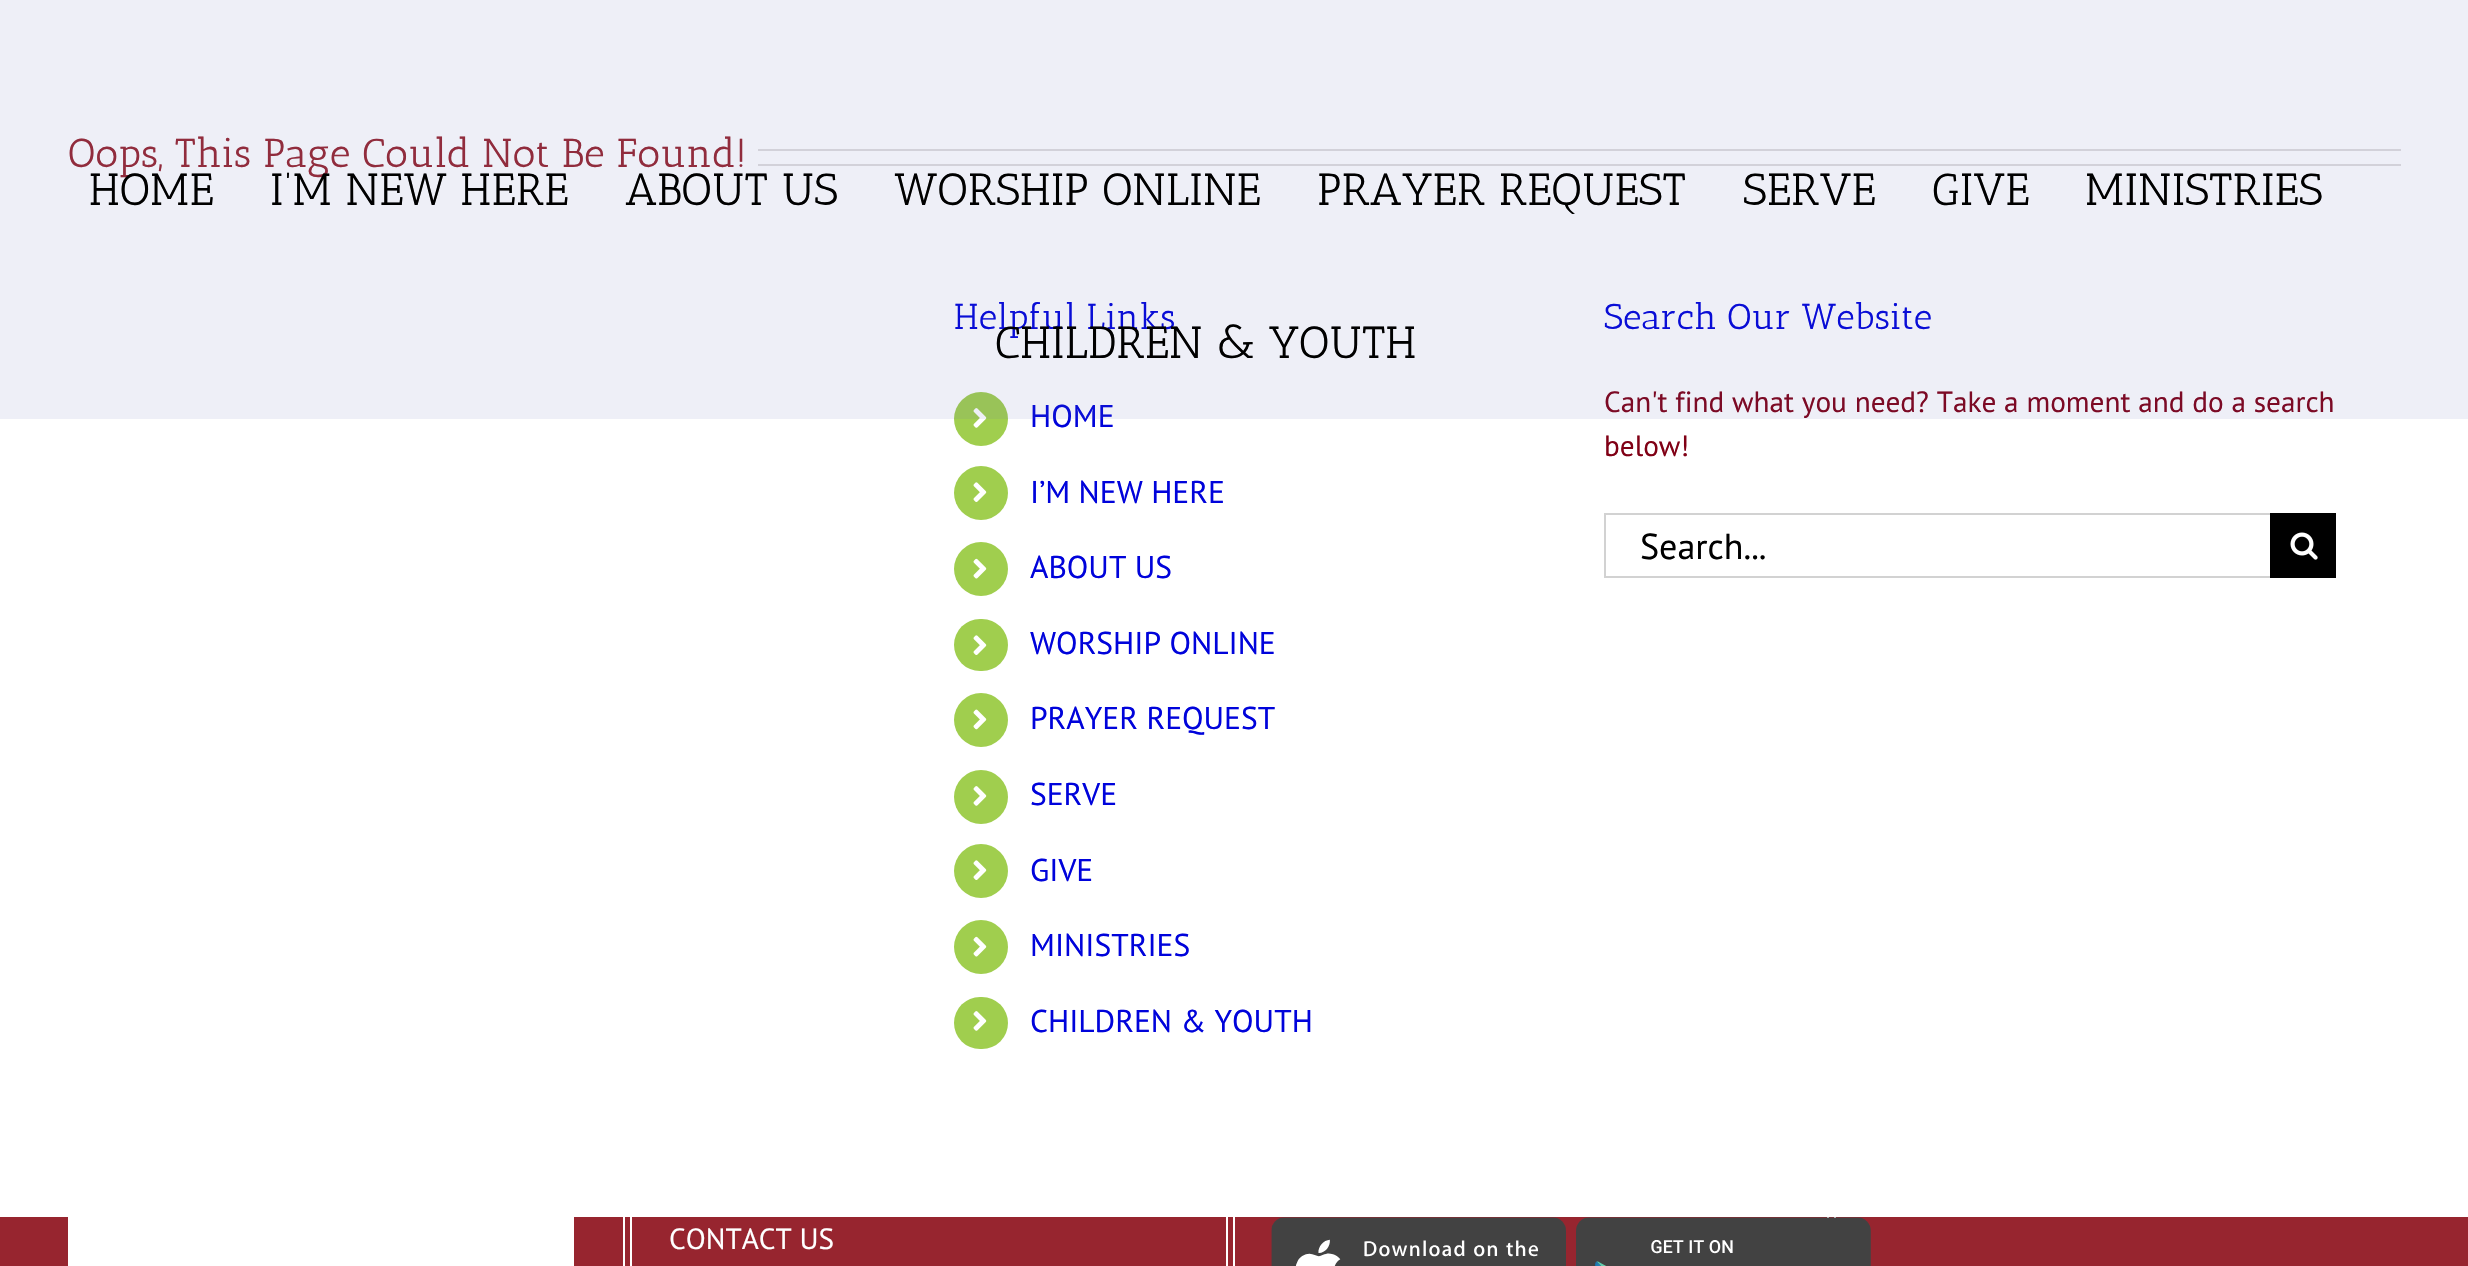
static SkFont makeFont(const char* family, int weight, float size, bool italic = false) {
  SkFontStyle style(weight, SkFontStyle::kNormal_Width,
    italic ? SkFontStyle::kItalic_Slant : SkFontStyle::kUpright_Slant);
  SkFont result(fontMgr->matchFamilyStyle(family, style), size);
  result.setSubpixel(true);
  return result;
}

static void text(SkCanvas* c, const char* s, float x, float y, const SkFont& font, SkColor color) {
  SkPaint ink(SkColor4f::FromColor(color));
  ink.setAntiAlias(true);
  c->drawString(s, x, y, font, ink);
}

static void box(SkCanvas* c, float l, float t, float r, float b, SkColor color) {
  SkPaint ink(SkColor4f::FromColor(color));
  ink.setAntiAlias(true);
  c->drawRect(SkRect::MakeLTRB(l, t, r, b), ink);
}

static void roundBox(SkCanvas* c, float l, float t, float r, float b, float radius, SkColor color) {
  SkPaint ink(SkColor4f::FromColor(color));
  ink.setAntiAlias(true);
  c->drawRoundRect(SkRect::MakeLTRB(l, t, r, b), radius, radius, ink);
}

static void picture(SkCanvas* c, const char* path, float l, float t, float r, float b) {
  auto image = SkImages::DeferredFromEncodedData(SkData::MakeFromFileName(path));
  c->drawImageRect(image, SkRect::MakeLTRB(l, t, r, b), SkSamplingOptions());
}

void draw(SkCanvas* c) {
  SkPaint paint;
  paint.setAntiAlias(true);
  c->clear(0xffffffff);
  SkFont face1 = makeFont("Antic Slab", 400, 40.5f);
  text(c, "Oops, This Page Could Not Be Found!", 68, 167, face1, 0xff97252f);
  box(c, 758, 149, 2401, 151, 0xffe0dede);
  box(c, 758, 164, 2401, 166, 0xffe0dede);
  SkFont face2 = makeFont("Antic Slab", 400, 36);
  text(c, "Helpful Links", 954, 329, face2, 0xff0003db);
  paint.setColor(0xffa0ce4e);
  c->drawCircle(981, 419, 27, paint);
  picture(c, "img_01.png", 973, 408, 987, 428);
  SkFont face3 = makeFont("PT Sans", 400, 31.5f);
  text(c, "HOME", 1030, 427, face3, 0xff0003db);
  c->drawCircle(981, 493, 27, paint);
  picture(c, "img_02.png", 973, 482, 987, 502);
  text(c, "I’M NEW HERE", 1030, 503, face3, 0xff0003db);
  c->drawCircle(981, 569, 27, paint);
  picture(c, "img_03.png", 973, 558, 987, 579);
  text(c, "ABOUT US", 1030, 578, face3, 0xff0003db);
  roundBox(c, 954, 619, 1008, 671, 26, 0xffa0ce4e);
  picture(c, "img_02.png", 973, 635, 987, 655);
  text(c, "WORSHIP ONLINE", 1030, 654, face3, 0xff0003db);
  c->drawCircle(981, 720, 27, paint);
  picture(c, "img_04.png", 973, 709, 987, 730);
  text(c, "PRAYER REQUEST", 1030, 729, face3, 0xff0003db);
  c->drawCircle(981, 797, 27, paint);
  picture(c, "img_01.png", 973, 786, 987, 806);
  text(c, "SERVE", 1030, 805, face3, 0xff0003db);
  c->drawCircle(981, 871, 27, paint);
  picture(c, "img_02.png", 973, 860, 987, 880);
  text(c, "GIVE", 1030, 881, face3, 0xff0003db);
  c->drawCircle(981, 947, 27, paint);
  picture(c, "img_03.png", 973, 936, 987, 957);
  text(c, "MINISTRIES", 1030, 956, face3, 0xff0003db);
  roundBox(c, 954, 997, 1008, 1049, 26, 0xffa0ce4e);
  picture(c, "img_01.png", 973, 1011, 987, 1031);
  text(c, "CHILDREN & YOUTH", 1030, 1032, face3, 0xff0003db);
  text(c, "Search Our Website", 1604, 329, face2, 0xff0003db);
  SkFont face4 = makeFont("PT Sans", 400, 29.25f);
  text(c, "Can't find what you need? Take a moment and do a search", 1604, 412, face4, 0xff800015);
  text(c, "below!", 1604, 456, face4, 0xff800015);
  box(c, 1604, 513, 2270, 515, 0xffd2d2d2);
  box(c, 1604, 576, 2270, 578, 0xffd2d2d2);
  box(c, 1604, 513, 1606, 578, 0xffd2d2d2);
  SkFont face5 = makeFont("PT Sans", 400, 36);
  text(c, "Search...", 1640, 559, face5, 0xff000000);
  box(c, 2270, 513, 2336, 578, 0xff000000);
  picture(c, "img_05.png", 2290, 532, 2318, 560);
  box(c, 0, 0, 2468, 419, 0x1a5c5eb2);
  SkFont face6 = makeFont("Antic Slab", 400, 45);
  text(c, "HOME", 89, 205, face6, 0xff000000);
  text(c, "I’M NEW HERE", 270, 205, face6, 0xff000000);
  text(c, "ABOUT US", 625, 205, face6, 0xff000000);
  text(c, "WORSHIP ONLINE", 894, 205, face6, 0xff000000);
  text(c, "PRAYER REQUEST", 1317, 205, face6, 0xff000000);
  text(c, "SERVE", 1743, 205, face6, 0xff000000);
  text(c, "GIVE", 1932, 205, face6, 0xff000000);
  text(c, "MINISTRIES", 2085, 205, face6, 0xff000000);
  text(c, "CHILDREN & YOUTH", 995, 358, face6, 0xff000000);
  box(c, 0, 1217, 2468, 1266, 0xff97252f);
  box(c, 623, 1217, 625, 1266, 0xffffffff);
  box(c, 630, 1217, 632, 1266, 0xffffffff);
  box(c, 68, 1217, 574, 1266, 0xffffffff);
  box(c, 1226, 1217, 1228, 1266, 0xffffffff);
  box(c, 1233, 1217, 1235, 1266, 0xffffffff);
  text(c, "CONTACT US", 669, 1249, face4, 0xffffffff);
  box(c, 1827, 1217, 1829, 1218, 0xffffffff);
  box(c, 1834, 1217, 1836, 1218, 0xffffffff);
  picture(c, "img_06.png", 1271, 1217, 1871, 1266);
}
